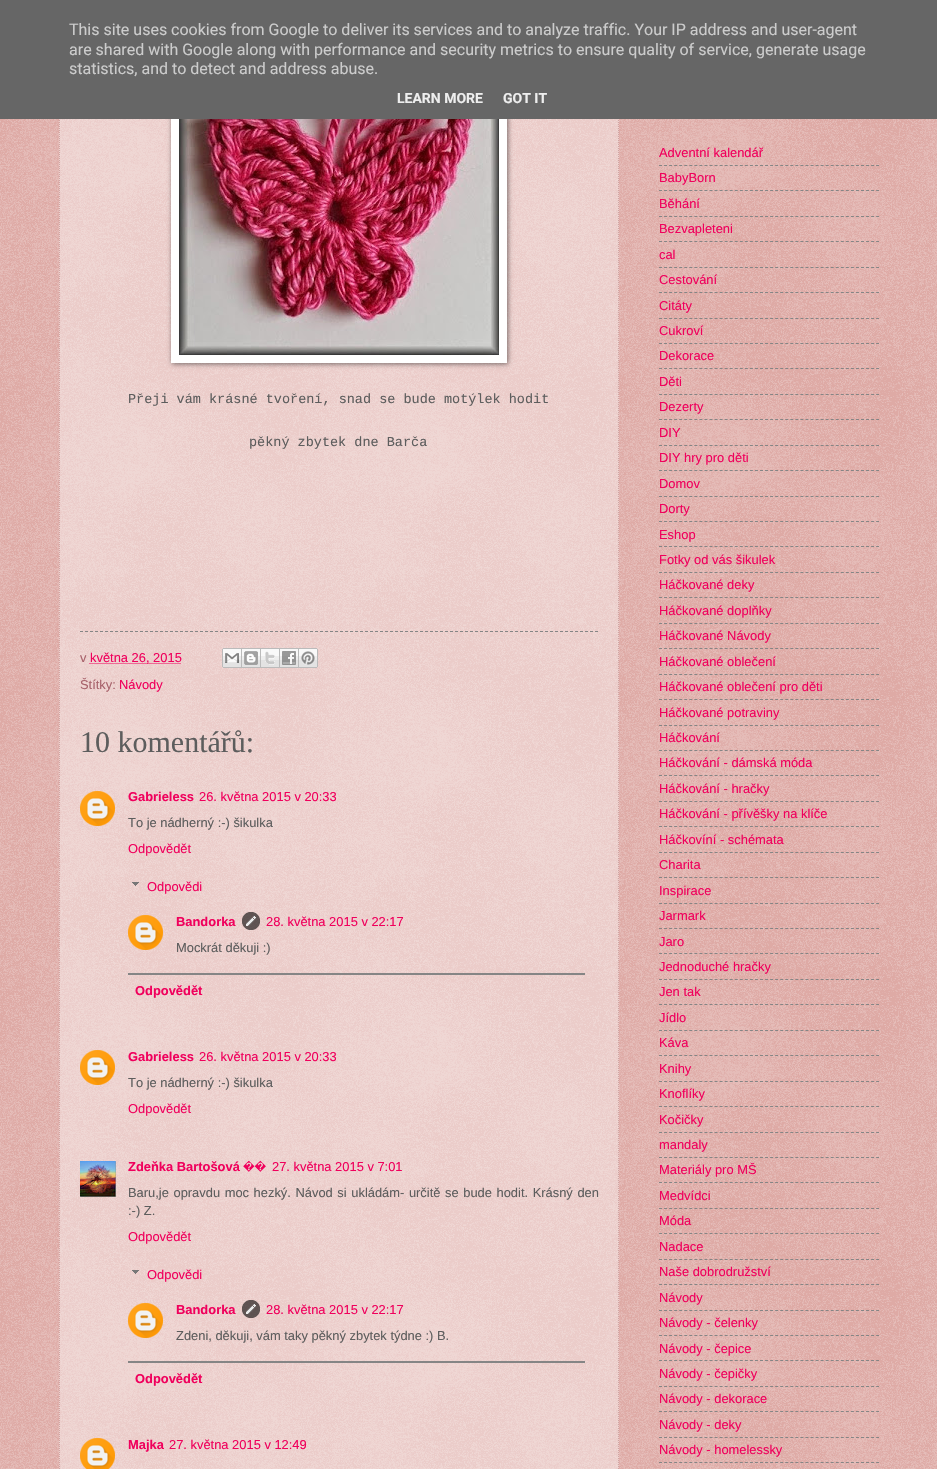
static SkFont makeFont(const char* family, int weight, float size, bool italic = false) {
  SkFontStyle style(weight, SkFontStyle::kNormal_Width,
    italic ? SkFontStyle::kItalic_Slant : SkFontStyle::kUpright_Slant);
  SkFont result(fontMgr->matchFamilyStyle(family, style), size);
  result.setSubpixel(true);
  return result;
}

static void text(SkCanvas* c, const char* s, float x, float y, const SkFont& font, SkColor color) {
  SkPaint ink(SkColor4f::FromColor(color));
  ink.setAntiAlias(true);
  c->drawString(s, x, y, font, ink);
}

static void spacedText(SkCanvas* c, const char* s, float x, float y, const SkFont& font, const SkPaint& ink, float letter, float word) {
  std::vector<SkGlyphID> glyphs(font.countText(s, strlen(s), SkTextEncoding::kUTF8));
  std::vector<float> xs(glyphs.size());
  font.textToGlyphs(s, strlen(s), SkTextEncoding::kUTF8, glyphs);
  font.getXPos(glyphs, xs, x);
  float extra = 0;
  for (size_t i = 0; i < glyphs.size(); i++) {
    xs[i] += extra;
    extra += letter + word * (glyphs[i] == font.unicharToGlyph(' '));
  }
  c->drawTextBlob(SkTextBlob::MakeFromPosHGlyphs(glyphs, xs, y, font), 0, 0, ink);
}

static void box(SkCanvas* c, float l, float t, float r, float b, SkColor color) {
  SkPaint ink(SkColor4f::FromColor(color));
  ink.setAntiAlias(true);
  c->drawRect(SkRect::MakeLTRB(l, t, r, b), ink);
}

static void picture(SkCanvas* c, const char* path, float l, float t, float r, float b) {
  auto image = SkImages::DeferredFromEncodedData(SkData::MakeFromFileName(path));
  c->drawImageRect(image, SkRect::MakeLTRB(l, t, r, b), SkSamplingOptions());
}

void draw(SkCanvas* c) {
  SkPaint paint;
  paint.setAntiAlias(true);
  c->clear(0xffc66c64);
  picture(c, "img_01.png", 0, 119, 937, 1469);
  box(c, 59, 119, 619, 1469, 0x66ffffff);
  paint.setStyle(SkPaint::kStroke_Style);
  paint.setStrokeWidth(1);
  paint.setColor(0xffd1a4a2);
  paint.setPathEffect(SkDashPathEffect::Make({{1, 1}}, 0));
  c->drawPath(SkPathBuilder().moveTo(618.5f, -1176).lineTo(618.5f, 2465).detach(), paint);
  paint.setPathEffect(nullptr);
  paint.setPathEffect(SkDashPathEffect::Make({{1, 1}}, 0));
  c->drawPath(SkPathBuilder().moveTo(59.5f, -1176).lineTo(59.5f, 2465).detach(), paint);
  paint.setPathEffect(nullptr);
  paint.setStyle(SkPaint::kFill_Style);
  paint.setColor(0x80000000);
  paint.setMaskFilter(SkMaskFilter::MakeBlur(kNormal_SkBlurStyle, 2.5f));
  c->drawRect(SkRect::MakeLTRB(172, 28, 508, 364), paint);
  paint.setMaskFilter(nullptr);
  box(c, 0, 0, 937, 119, 0xff666666);
  SkFont face1 = makeFont("Roboto", 400, 16);
  text(c, "This site uses cookies from Google to deliver its services and to analyze traffic. Your IP address and user-agent", 69, 35, face1, 0xffcccccc);
  text(c, "are shared with Google along with performance and security metrics to ensure quality of service, generate usage", 69, 55, face1, 0xffcccccc);
  text(c, "statistics, and to detect and address abuse.", 69, 74, face1, 0xffcccccc);
  SkFont face2 = makeFont("Roboto", 700, 14);
  text(c, "LEARN MORE", 397, 103, face2, 0xffeeeeee);
  text(c, "GOT IT", 503, 103, face2, 0xffeeeeee);
  box(c, 171, 119, 507, 363, 0xffffffff);
  picture(c, "img_02.png", 179, 119, 499, 355);
  SkFont face3 = makeFont("Liberation Mono", 400, 13.5f);
  text(c, "Přeji vám krásné tvoření, snad se bude motýlek hodit", 128, 403, face3, 0xff5d5d5d);
  text(c, "pěkný zbytek dne Barča", 249, 446, face3, 0xff5d5d5d);
  paint.setStyle(SkPaint::kStroke_Style);
  paint.setColor(0xff858585);
  paint.setPathEffect(SkDashPathEffect::Make({{3, 2}}, 0));
  c->drawPath(SkPathBuilder().moveTo(80, 631.5f).lineTo(598, 631.5f).detach(), paint);
  paint.setPathEffect(nullptr);
  SkFont face4 = makeFont("Liberation Sans", 400, 12.9f);
  text(c, "v", 80, 662, face4, 0xffa8626b);
  paint.setColor(0xfff0005c);
  paint.setPathEffect(SkDashPathEffect::Make({{1, 1}}, 0));
  c->drawPath(SkPathBuilder().moveTo(89.5f, 663.5f).lineTo(181, 663.5f).detach(), paint);
  paint.setPathEffect(nullptr);
  text(c, "května 26, 2015", 90, 662, face4, 0xfff0005c);
  picture(c, "img_03.png", 222, 648, 242, 668);
  picture(c, "img_04.png", 242, 648, 261, 668);
  picture(c, "img_05.png", 261, 648, 280, 668);
  picture(c, "img_06.png", 280, 648, 299, 668);
  picture(c, "img_07.png", 299, 648, 318, 668);
  text(c, "Štítky:", 80, 689, face4, 0xffa8626b);
  text(c, "Návody", 119, 689, face4, 0xfff0005c);
  SkFont face5 = makeFont("Liberation Serif", 400, 30);
  text(c, "10 komentářů:", 80, 752, face5, 0xff5d5d5d);
  picture(c, "img_08.png", 80, 791, 115, 826);
  SkFont face6 = makeFont("Liberation Sans", 700, 12.9f);
  text(c, "Gabrieless", 128, 801, face6, 0xfff0005c);
  text(c, "26. května 2015 v 20:33", 199, 801, face4, 0xfff0005c);
  text(c, "To je nádherný :-) šikulka", 128, 827, face4, 0xff5d5d5d);
  text(c, "Odpovědět", 128, 853, face4, 0xfff0005c);
  picture(c, "img_09.png", 132, 882, 139, 886);
  text(c, "Odpovědi", 147, 891, face4, 0xfff0005c);
  picture(c, "img_10.png", 128, 915, 163, 950);
  text(c, "Bandorka", 176, 926, face6, 0xfff0005c);
  picture(c, "img_11.png", 242, 912, 260, 930);
  text(c, "28. května 2015 v 22:17", 266, 926, face4, 0xfff0005c);
  text(c, "Mockrát děkuji :)", 176, 952, face4, 0xff5d5d5d);
  box(c, 128, 973, 585, 975, 0xff858585);
  text(c, "Odpovědět", 135, 995, face6, 0xfff0005c);
  picture(c, "img_12.png", 80, 1050, 115, 1085);
  text(c, "Gabrieless", 128, 1061, face6, 0xfff0005c);
  text(c, "26. května 2015 v 20:33", 199, 1061, face4, 0xfff0005c);
  text(c, "To je nádherný :-) šikulka", 128, 1087, face4, 0xff5d5d5d);
  text(c, "Odpovědět", 128, 1113, face4, 0xfff0005c);
  picture(c, "img_13.png", 80, 1161, 116, 1197);
  text(c, "Zdeňka Bartošová", 128, 1171, face6, 0xfff0005c);
  SkFont face7 = makeFont("FreeSans", 600, 12.9f);
  text(c, "��", 243, 1171, face7, 0xfff0005c);
  text(c, "27. května 2015 v 7:01", 272, 1171, face4, 0xfff0005c);
  paint.setStyle(SkPaint::kFill_Style);
  paint.setColor(0xff5d5d5d);
  spacedText(c, "Baru,je opravdu moc hezký. Návod si ukládám- určitě se bude hodit. Krásný den", 128, 1197, face4, paint, 0, 1);
  text(c, ":-) Z.", 128, 1215, face4, 0xff5d5d5d);
  text(c, "Odpovědět", 128, 1241, face4, 0xfff0005c);
  picture(c, "img_14.png", 132, 1270, 139, 1274);
  text(c, "Odpovědi", 147, 1279, face4, 0xfff0005c);
  picture(c, "img_15.png", 128, 1303, 163, 1338);
  text(c, "Bandorka", 176, 1314, face6, 0xfff0005c);
  picture(c, "img_16.png", 242, 1300, 260, 1318);
  text(c, "28. května 2015 v 22:17", 266, 1314, face4, 0xfff0005c);
  text(c, "Zdeni, děkuji, vám taky pěkný zbytek týdne :) B.", 176, 1340, face4, 0xff5d5d5d);
  box(c, 128, 1361, 585, 1363, 0xff858585);
  text(c, "Odpovědět", 135, 1383, face6, 0xfff0005c);
  picture(c, "img_17.png", 80, 1438, 115, 1469);
  text(c, "Majka", 128, 1449, face6, 0xfff0005c);
  text(c, "27. května 2015 v 12:49", 169, 1449, face4, 0xfff0005c);
  text(c, "Adventní kalendář", 659, 157, face4, 0xfff0005c);
  paint.setStyle(SkPaint::kStroke_Style);
  paint.setColor(0xff858585);
  paint.setPathEffect(SkDashPathEffect::Make({{3, 2.05f}}, 0));
  c->drawPath(SkPathBuilder().moveTo(659, 165.5f).lineTo(879, 165.5f).detach(), paint);
  paint.setPathEffect(nullptr);
  text(c, "BabyBorn", 659, 182, face4, 0xfff0005c);
  paint.setPathEffect(SkDashPathEffect::Make({{3, 2.05f}}, 0));
  c->drawPath(SkPathBuilder().moveTo(659, 190.5f).lineTo(879, 190.5f).detach(), paint);
  paint.setPathEffect(nullptr);
  text(c, "Běhání", 659, 208, face4, 0xfff0005c);
  paint.setPathEffect(SkDashPathEffect::Make({{3, 2.05f}}, 0));
  c->drawPath(SkPathBuilder().moveTo(659, 216.5f).lineTo(879, 216.5f).detach(), paint);
  paint.setPathEffect(nullptr);
  text(c, "Bezvapleteni", 659, 233, face4, 0xfff0005c);
  paint.setPathEffect(SkDashPathEffect::Make({{3, 2.05f}}, 0));
  c->drawPath(SkPathBuilder().moveTo(659, 241.5f).lineTo(879, 241.5f).detach(), paint);
  paint.setPathEffect(nullptr);
  text(c, "cal", 659, 259, face4, 0xfff0005c);
  paint.setPathEffect(SkDashPathEffect::Make({{3, 2.05f}}, 0));
  c->drawPath(SkPathBuilder().moveTo(659, 267.5f).lineTo(879, 267.5f).detach(), paint);
  paint.setPathEffect(nullptr);
  text(c, "Cestování", 659, 284, face4, 0xfff0005c);
  paint.setPathEffect(SkDashPathEffect::Make({{3, 2.05f}}, 0));
  c->drawPath(SkPathBuilder().moveTo(659, 292.5f).lineTo(879, 292.5f).detach(), paint);
  paint.setPathEffect(nullptr);
  text(c, "Citáty", 659, 310, face4, 0xfff0005c);
  paint.setPathEffect(SkDashPathEffect::Make({{3, 2.05f}}, 0));
  c->drawPath(SkPathBuilder().moveTo(659, 318.5f).lineTo(879, 318.5f).detach(), paint);
  paint.setPathEffect(nullptr);
  text(c, "Cukroví", 659, 335, face4, 0xfff0005c);
  paint.setPathEffect(SkDashPathEffect::Make({{3, 2.05f}}, 0));
  c->drawPath(SkPathBuilder().moveTo(659, 343.5f).lineTo(879, 343.5f).detach(), paint);
  paint.setPathEffect(nullptr);
  text(c, "Dekorace", 659, 360, face4, 0xfff0005c);
  paint.setPathEffect(SkDashPathEffect::Make({{3, 2.05f}}, 0));
  c->drawPath(SkPathBuilder().moveTo(659, 368.5f).lineTo(879, 368.5f).detach(), paint);
  paint.setPathEffect(nullptr);
  text(c, "Děti", 659, 386, face4, 0xfff0005c);
  paint.setPathEffect(SkDashPathEffect::Make({{3, 2.05f}}, 0));
  c->drawPath(SkPathBuilder().moveTo(659, 394.5f).lineTo(879, 394.5f).detach(), paint);
  paint.setPathEffect(nullptr);
  text(c, "Dezerty", 659, 411, face4, 0xfff0005c);
  paint.setPathEffect(SkDashPathEffect::Make({{3, 2.05f}}, 0));
  c->drawPath(SkPathBuilder().moveTo(659, 419.5f).lineTo(879, 419.5f).detach(), paint);
  paint.setPathEffect(nullptr);
  text(c, "DIY", 659, 437, face4, 0xfff0005c);
  paint.setPathEffect(SkDashPathEffect::Make({{3, 2.05f}}, 0));
  c->drawPath(SkPathBuilder().moveTo(659, 445.5f).lineTo(879, 445.5f).detach(), paint);
  paint.setPathEffect(nullptr);
  text(c, "DIY hry pro děti", 659, 462, face4, 0xfff0005c);
  paint.setPathEffect(SkDashPathEffect::Make({{3, 2.05f}}, 0));
  c->drawPath(SkPathBuilder().moveTo(659, 470.5f).lineTo(879, 470.5f).detach(), paint);
  paint.setPathEffect(nullptr);
  text(c, "Domov", 659, 488, face4, 0xfff0005c);
  paint.setPathEffect(SkDashPathEffect::Make({{3, 2.05f}}, 0));
  c->drawPath(SkPathBuilder().moveTo(659, 496.5f).lineTo(879, 496.5f).detach(), paint);
  paint.setPathEffect(nullptr);
  text(c, "Dorty", 659, 513, face4, 0xfff0005c);
  paint.setPathEffect(SkDashPathEffect::Make({{3, 2.05f}}, 0));
  c->drawPath(SkPathBuilder().moveTo(659, 521.5f).lineTo(879, 521.5f).detach(), paint);
  paint.setPathEffect(nullptr);
  text(c, "Eshop", 659, 539, face4, 0xfff0005c);
  paint.setPathEffect(SkDashPathEffect::Make({{3, 2.05f}}, 0));
  c->drawPath(SkPathBuilder().moveTo(659, 546.5f).lineTo(879, 546.5f).detach(), paint);
  paint.setPathEffect(nullptr);
  text(c, "Fotky od vás šikulek", 659, 564, face4, 0xfff0005c);
  paint.setPathEffect(SkDashPathEffect::Make({{3, 2.05f}}, 0));
  c->drawPath(SkPathBuilder().moveTo(659, 572.5f).lineTo(879, 572.5f).detach(), paint);
  paint.setPathEffect(nullptr);
  text(c, "Háčkované deky", 659, 589, face4, 0xfff0005c);
  paint.setPathEffect(SkDashPathEffect::Make({{3, 2.05f}}, 0));
  c->drawPath(SkPathBuilder().moveTo(659, 597.5f).lineTo(879, 597.5f).detach(), paint);
  paint.setPathEffect(nullptr);
  text(c, "Háčkované doplňky", 659, 615, face4, 0xfff0005c);
  paint.setPathEffect(SkDashPathEffect::Make({{3, 2.05f}}, 0));
  c->drawPath(SkPathBuilder().moveTo(659, 623.5f).lineTo(879, 623.5f).detach(), paint);
  paint.setPathEffect(nullptr);
  text(c, "Háčkované Návody", 659, 640, face4, 0xfff0005c);
  paint.setPathEffect(SkDashPathEffect::Make({{3, 2.05f}}, 0));
  c->drawPath(SkPathBuilder().moveTo(659, 648.5f).lineTo(879, 648.5f).detach(), paint);
  paint.setPathEffect(nullptr);
  text(c, "Háčkované oblečení", 659, 666, face4, 0xfff0005c);
  paint.setPathEffect(SkDashPathEffect::Make({{3, 2.05f}}, 0));
  c->drawPath(SkPathBuilder().moveTo(659, 674.5f).lineTo(879, 674.5f).detach(), paint);
  paint.setPathEffect(nullptr);
  text(c, "Háčkované oblečení pro děti", 659, 691, face4, 0xfff0005c);
  paint.setPathEffect(SkDashPathEffect::Make({{3, 2.05f}}, 0));
  c->drawPath(SkPathBuilder().moveTo(659, 699.5f).lineTo(879, 699.5f).detach(), paint);
  paint.setPathEffect(nullptr);
  text(c, "Háčkované potraviny", 659, 717, face4, 0xfff0005c);
  paint.setPathEffect(SkDashPathEffect::Make({{3, 2.05f}}, 0));
  c->drawPath(SkPathBuilder().moveTo(659, 725.5f).lineTo(879, 725.5f).detach(), paint);
  paint.setPathEffect(nullptr);
  text(c, "Háčkování", 659, 742, face4, 0xfff0005c);
  paint.setPathEffect(SkDashPathEffect::Make({{3, 2.05f}}, 0));
  c->drawPath(SkPathBuilder().moveTo(659, 750.5f).lineTo(879, 750.5f).detach(), paint);
  paint.setPathEffect(nullptr);
  text(c, "Háčkování - dámská móda", 659, 767, face4, 0xfff0005c);
  paint.setPathEffect(SkDashPathEffect::Make({{3, 2.05f}}, 0));
  c->drawPath(SkPathBuilder().moveTo(659, 775.5f).lineTo(879, 775.5f).detach(), paint);
  paint.setPathEffect(nullptr);
  text(c, "Háčkování - hračky", 659, 793, face4, 0xfff0005c);
  paint.setPathEffect(SkDashPathEffect::Make({{3, 2.05f}}, 0));
  c->drawPath(SkPathBuilder().moveTo(659, 801.5f).lineTo(879, 801.5f).detach(), paint);
  paint.setPathEffect(nullptr);
  text(c, "Háčkování - přívěšky na klíče", 659, 818, face4, 0xfff0005c);
  paint.setPathEffect(SkDashPathEffect::Make({{3, 2.05f}}, 0));
  c->drawPath(SkPathBuilder().moveTo(659, 826.5f).lineTo(879, 826.5f).detach(), paint);
  paint.setPathEffect(nullptr);
  text(c, "Háčkovíní - schémata", 659, 844, face4, 0xfff0005c);
  paint.setPathEffect(SkDashPathEffect::Make({{3, 2.05f}}, 0));
  c->drawPath(SkPathBuilder().moveTo(659, 852.5f).lineTo(879, 852.5f).detach(), paint);
  paint.setPathEffect(nullptr);
  text(c, "Charita", 659, 869, face4, 0xfff0005c);
  paint.setPathEffect(SkDashPathEffect::Make({{3, 2.05f}}, 0));
  c->drawPath(SkPathBuilder().moveTo(659, 877.5f).lineTo(879, 877.5f).detach(), paint);
  paint.setPathEffect(nullptr);
  text(c, "Inspirace", 659, 895, face4, 0xfff0005c);
  paint.setPathEffect(SkDashPathEffect::Make({{3, 2.05f}}, 0));
  c->drawPath(SkPathBuilder().moveTo(659, 903.5f).lineTo(879, 903.5f).detach(), paint);
  paint.setPathEffect(nullptr);
  text(c, "Jarmark", 659, 920, face4, 0xfff0005c);
  paint.setPathEffect(SkDashPathEffect::Make({{3, 2.05f}}, 0));
  c->drawPath(SkPathBuilder().moveTo(659, 928.5f).lineTo(879, 928.5f).detach(), paint);
  paint.setPathEffect(nullptr);
  text(c, "Jaro", 659, 946, face4, 0xfff0005c);
  paint.setPathEffect(SkDashPathEffect::Make({{3, 2.05f}}, 0));
  c->drawPath(SkPathBuilder().moveTo(659, 953.5f).lineTo(879, 953.5f).detach(), paint);
  paint.setPathEffect(nullptr);
  text(c, "Jednoduché hračky", 659, 971, face4, 0xfff0005c);
  paint.setPathEffect(SkDashPathEffect::Make({{3, 2.05f}}, 0));
  c->drawPath(SkPathBuilder().moveTo(659, 979.5f).lineTo(879, 979.5f).detach(), paint);
  paint.setPathEffect(nullptr);
  text(c, "Jen tak", 659, 996, face4, 0xfff0005c);
  paint.setPathEffect(SkDashPathEffect::Make({{3, 2.05f}}, 0));
  c->drawPath(SkPathBuilder().moveTo(659, 1004.5f).lineTo(879, 1004.5f).detach(), paint);
  paint.setPathEffect(nullptr);
  text(c, "Jídlo", 659, 1022, face4, 0xfff0005c);
  paint.setPathEffect(SkDashPathEffect::Make({{3, 2.05f}}, 0));
  c->drawPath(SkPathBuilder().moveTo(659, 1030.5f).lineTo(879, 1030.5f).detach(), paint);
  paint.setPathEffect(nullptr);
  text(c, "Káva", 659, 1047, face4, 0xfff0005c);
  paint.setPathEffect(SkDashPathEffect::Make({{3, 2.05f}}, 0));
  c->drawPath(SkPathBuilder().moveTo(659, 1055.5f).lineTo(879, 1055.5f).detach(), paint);
  paint.setPathEffect(nullptr);
  text(c, "Knihy", 659, 1073, face4, 0xfff0005c);
  paint.setPathEffect(SkDashPathEffect::Make({{3, 2.05f}}, 0));
  c->drawPath(SkPathBuilder().moveTo(659, 1081.5f).lineTo(879, 1081.5f).detach(), paint);
  paint.setPathEffect(nullptr);
  text(c, "Knoflíky", 659, 1098, face4, 0xfff0005c);
  paint.setPathEffect(SkDashPathEffect::Make({{3, 2.05f}}, 0));
  c->drawPath(SkPathBuilder().moveTo(659, 1106.5f).lineTo(879, 1106.5f).detach(), paint);
  paint.setPathEffect(nullptr);
  text(c, "Kočičky", 659, 1124, face4, 0xfff0005c);
  paint.setPathEffect(SkDashPathEffect::Make({{3, 2.05f}}, 0));
  c->drawPath(SkPathBuilder().moveTo(659, 1132.5f).lineTo(879, 1132.5f).detach(), paint);
  paint.setPathEffect(nullptr);
  text(c, "mandaly", 659, 1149, face4, 0xfff0005c);
  paint.setPathEffect(SkDashPathEffect::Make({{3, 2.05f}}, 0));
  c->drawPath(SkPathBuilder().moveTo(659, 1157.5f).lineTo(879, 1157.5f).detach(), paint);
  paint.setPathEffect(nullptr);
  text(c, "Materiály pro MŠ", 659, 1174, face4, 0xfff0005c);
  paint.setPathEffect(SkDashPathEffect::Make({{3, 2.05f}}, 0));
  c->drawPath(SkPathBuilder().moveTo(659, 1182.5f).lineTo(879, 1182.5f).detach(), paint);
  paint.setPathEffect(nullptr);
  text(c, "Medvídci", 659, 1200, face4, 0xfff0005c);
  paint.setPathEffect(SkDashPathEffect::Make({{3, 2.05f}}, 0));
  c->drawPath(SkPathBuilder().moveTo(659, 1208.5f).lineTo(879, 1208.5f).detach(), paint);
  paint.setPathEffect(nullptr);
  text(c, "Móda", 659, 1225, face4, 0xfff0005c);
  paint.setPathEffect(SkDashPathEffect::Make({{3, 2.05f}}, 0));
  c->drawPath(SkPathBuilder().moveTo(659, 1233.5f).lineTo(879, 1233.5f).detach(), paint);
  paint.setPathEffect(nullptr);
  text(c, "Nadace", 659, 1251, face4, 0xfff0005c);
  paint.setPathEffect(SkDashPathEffect::Make({{3, 2.05f}}, 0));
  c->drawPath(SkPathBuilder().moveTo(659, 1259.5f).lineTo(879, 1259.5f).detach(), paint);
  paint.setPathEffect(nullptr);
  text(c, "Naše dobrodružství", 659, 1276, face4, 0xfff0005c);
  paint.setPathEffect(SkDashPathEffect::Make({{3, 2.05f}}, 0));
  c->drawPath(SkPathBuilder().moveTo(659, 1284.5f).lineTo(879, 1284.5f).detach(), paint);
  paint.setPathEffect(nullptr);
  text(c, "Návody", 659, 1302, face4, 0xfff0005c);
  paint.setPathEffect(SkDashPathEffect::Make({{3, 2.05f}}, 0));
  c->drawPath(SkPathBuilder().moveTo(659, 1310.5f).lineTo(879, 1310.5f).detach(), paint);
  paint.setPathEffect(nullptr);
  text(c, "Návody - čelenky", 659, 1327, face4, 0xfff0005c);
  paint.setPathEffect(SkDashPathEffect::Make({{3, 2.05f}}, 0));
  c->drawPath(SkPathBuilder().moveTo(659, 1335.5f).lineTo(879, 1335.5f).detach(), paint);
  paint.setPathEffect(nullptr);
  text(c, "Návody - čepice", 659, 1353, face4, 0xfff0005c);
  paint.setPathEffect(SkDashPathEffect::Make({{3, 2.05f}}, 0));
  c->drawPath(SkPathBuilder().moveTo(659, 1360.5f).lineTo(879, 1360.5f).detach(), paint);
  paint.setPathEffect(nullptr);
  text(c, "Návody - čepičky", 659, 1378, face4, 0xfff0005c);
  paint.setPathEffect(SkDashPathEffect::Make({{3, 2.05f}}, 0));
  c->drawPath(SkPathBuilder().moveTo(659, 1386.5f).lineTo(879, 1386.5f).detach(), paint);
  paint.setPathEffect(nullptr);
  text(c, "Návody - dekorace", 659, 1403, face4, 0xfff0005c);
  paint.setPathEffect(SkDashPathEffect::Make({{3, 2.05f}}, 0));
  c->drawPath(SkPathBuilder().moveTo(659, 1411.5f).lineTo(879, 1411.5f).detach(), paint);
  paint.setPathEffect(nullptr);
  text(c, "Návody - deky", 659, 1429, face4, 0xfff0005c);
  paint.setPathEffect(SkDashPathEffect::Make({{3, 2.05f}}, 0));
  c->drawPath(SkPathBuilder().moveTo(659, 1437.5f).lineTo(879, 1437.5f).detach(), paint);
  paint.setPathEffect(nullptr);
  text(c, "Návody - homelessky", 659, 1454, face4, 0xfff0005c);
  paint.setPathEffect(SkDashPathEffect::Make({{3, 2.05f}}, 0));
  c->drawPath(SkPathBuilder().moveTo(659, 1462.5f).lineTo(879, 1462.5f).detach(), paint);
  paint.setPathEffect(nullptr);
}
